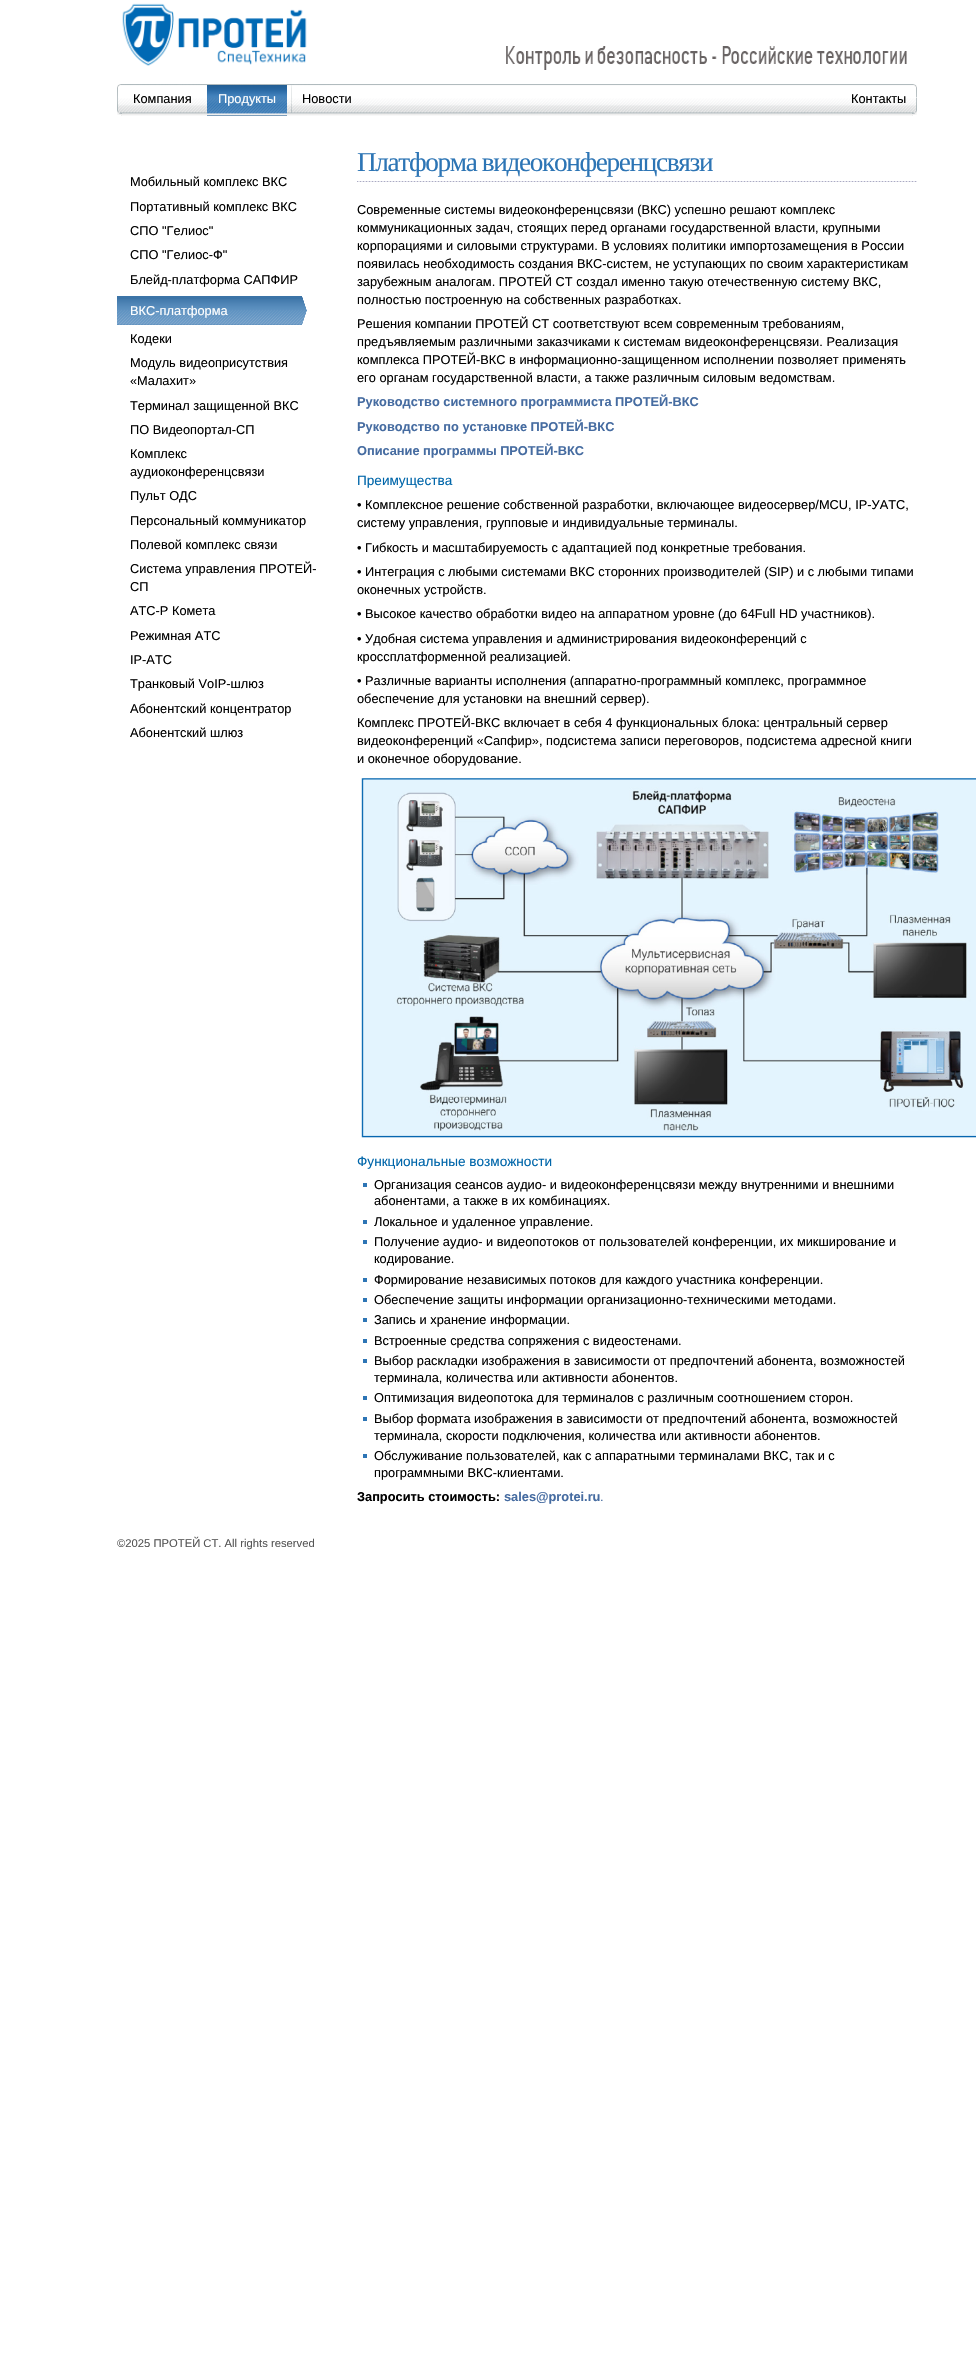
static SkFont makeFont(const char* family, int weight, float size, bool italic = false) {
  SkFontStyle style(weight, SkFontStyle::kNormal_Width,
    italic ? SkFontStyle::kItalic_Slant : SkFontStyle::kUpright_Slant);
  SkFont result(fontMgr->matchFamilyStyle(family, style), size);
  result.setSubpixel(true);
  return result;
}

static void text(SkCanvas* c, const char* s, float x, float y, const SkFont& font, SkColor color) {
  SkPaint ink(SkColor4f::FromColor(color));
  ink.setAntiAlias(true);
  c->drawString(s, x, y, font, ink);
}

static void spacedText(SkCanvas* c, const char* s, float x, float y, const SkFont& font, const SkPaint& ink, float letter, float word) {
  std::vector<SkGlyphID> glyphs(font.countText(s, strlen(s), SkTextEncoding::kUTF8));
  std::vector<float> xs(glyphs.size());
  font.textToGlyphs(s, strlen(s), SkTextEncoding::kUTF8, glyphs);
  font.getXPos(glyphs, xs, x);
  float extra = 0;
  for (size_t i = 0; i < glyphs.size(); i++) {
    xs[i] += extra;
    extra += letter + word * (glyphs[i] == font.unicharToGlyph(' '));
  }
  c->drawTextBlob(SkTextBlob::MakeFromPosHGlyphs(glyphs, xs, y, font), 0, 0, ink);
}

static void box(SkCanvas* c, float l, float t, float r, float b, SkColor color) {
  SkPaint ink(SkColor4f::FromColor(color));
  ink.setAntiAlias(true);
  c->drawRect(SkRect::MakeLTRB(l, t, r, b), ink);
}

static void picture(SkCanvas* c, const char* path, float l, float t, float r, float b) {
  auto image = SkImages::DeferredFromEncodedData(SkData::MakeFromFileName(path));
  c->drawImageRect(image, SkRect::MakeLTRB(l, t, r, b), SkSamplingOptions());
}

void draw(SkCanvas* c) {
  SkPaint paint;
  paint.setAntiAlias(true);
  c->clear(0xffffffff);
  picture(c, "img_01.png", 122, 3, 307, 66);
  picture(c, "img_02.png", 506, 46, 907, 70);
  picture(c, "img_03.png", 117, 84, 914, 98);
  picture(c, "img_04.png", 913, 84, 917, 98);
  picture(c, "img_05.png", 118, 97, 917, 116);
  picture(c, "img_06.png", 117, 98, 122, 116);
  SkFont face1 = makeFont("Liberation Sans", 400, 12.8f);
  text(c, "Компания", 133, 103, face1, 0xff000000);
  box(c, 207, 85, 287, 86, 0xff245e93);
  picture(c, "img_07.png", 207, 86, 287, 116);
  text(c, "Продукты", 218, 103, face1, 0xffffffff);
  picture(c, "img_08.png", 291, 85, 292, 113);
  text(c, "Новости", 302, 103, face1, 0xff000000);
  picture(c, "img_09.png", 912, 98, 917, 116);
  text(c, "Контакты", 851, 103, face1, 0xff000000);
  text(c, "Мобильный комплекс ВКС", 130, 186, face1, 0xff000000);
  text(c, "Портативный комплекс ВКС", 130, 211, face1, 0xff000000);
  text(c, "СПО \"Гелиос\"", 130, 235, face1, 0xff000000);
  text(c, "СПО \"Гелиос-Ф\"", 130, 259, face1, 0xff000000);
  text(c, "Блейд-платформа САПФИР", 130, 284, face1, 0xff000000);
  box(c, 117, 296, 303, 299, 0xff3c74a7);
  picture(c, "img_10.png", 117, 299, 307, 325);
  picture(c, "img_11.png", 302, 296, 307, 325);
  text(c, "ВКС-платформа", 130, 315, face1, 0xffffffff);
  text(c, "Кодеки", 130, 343, face1, 0xff000000);
  text(c, "Модуль видеоприсутствия", 130, 367, face1, 0xff000000);
  text(c, "«Малахит»", 130, 385, face1, 0xff000000);
  text(c, "Терминал защищенной ВКС", 130, 410, face1, 0xff000000);
  text(c, "ПО Видеопортал-СП", 130, 434, face1, 0xff000000);
  text(c, "Комплекс", 130, 458, face1, 0xff000000);
  text(c, "аудиоконференцсвязи", 130, 476, face1, 0xff000000);
  text(c, "Пульт ОДС", 130, 500, face1, 0xff000000);
  text(c, "Персональный коммуникатор", 130, 525, face1, 0xff000000);
  text(c, "Полевой комплекс связи", 130, 549, face1, 0xff000000);
  text(c, "Система управления ПРОТЕЙ-", 130, 573, face1, 0xff000000);
  text(c, "СП", 130, 591, face1, 0xff000000);
  text(c, "АТС-Р Комета", 130, 615, face1, 0xff000000);
  text(c, "Режимная АТС", 130, 640, face1, 0xff000000);
  text(c, "IP-АТС", 130, 664, face1, 0xff000000);
  text(c, "Транковый VoIP-шлюз", 130, 688, face1, 0xff000000);
  text(c, "Абонентский концентратор", 130, 713, face1, 0xff000000);
  text(c, "Абонентский шлюз", 130, 737, face1, 0xff000000);
  SkFont face2 = makeFont("Liberation Serif", 400, 27.25f);
  paint.setColor(0xff2d75b5);
  spacedText(c, "Платформа видеоконференцсвязи", 357, 171, face2, paint, -1.35f, 0);
  picture(c, "img_12.png", 357, 181, 917, 182);
  text(c, "Современные системы видеоконференцсвязи (ВКС) успешно решают комплекс", 357, 214, face1, 0xff000000);
  text(c, "коммуникационных задач, стоящих перед органами государственной власти, крупными", 357, 232, face1, 0xff000000);
  text(c, "корпорациями и силовыми структурами. В условиях политики импортозамещения в России", 357, 250, face1, 0xff000000);
  text(c, "появилась необходимость создания ВКС-систем, не уступающих по своим характеристикам", 357, 268, face1, 0xff000000);
  text(c, "зарубежным аналогам. ПРОТЕЙ СТ создал именно такую отечественную систему ВКС,", 357, 286, face1, 0xff000000);
  text(c, "полностью построенную на собственных разработках.", 357, 304, face1, 0xff000000);
  text(c, "Решения компании ПРОТЕЙ СТ соответствуют всем современным требованиям,", 357, 328, face1, 0xff000000);
  text(c, "предъявляемым различными заказчиками к системам видеоконференцсвязи. Реализация", 357, 346, face1, 0xff000000);
  text(c, "комплекса ПРОТЕЙ-ВКС в информационно-защищенном исполнении позволяет применять", 357, 364, face1, 0xff000000);
  text(c, "его органам государственной власти, а также различным силовым ведомствам.", 357, 382, face1, 0xff000000);
  SkFont face3 = makeFont("Liberation Sans", 700, 12.8f);
  text(c, "Руководство системного программиста ПРОТЕЙ-ВКС", 357, 406, face3, 0xff466ca1);
  text(c, "Руководство по установке ПРОТЕЙ-ВКС", 357, 431, face3, 0xff466ca1);
  text(c, "Описание программы ПРОТЕЙ-ВКС", 357, 455, face3, 0xff466ca1);
  SkFont face4 = makeFont("Liberation Sans", 400, 13.6f);
  text(c, "Преимущества", 357, 485, face4, 0xff0066aa);
  text(c, "• Комплексное решение собственной разработки, включающее видеосервер/MCU, IP-УАТС,", 357, 509, face1, 0xff000000);
  text(c, "систему управления, групповые и индивидуальные терминалы.", 357, 527, face1, 0xff000000);
  text(c, "• Гибкость и масштабируемость с адаптацией под конкретные требования.", 357, 552, face1, 0xff000000);
  text(c, "• Интеграция с любыми системами ВКС сторонних производителей (SIP) и с любыми типами", 357, 576, face1, 0xff000000);
  text(c, "оконечных устройств.", 357, 594, face1, 0xff000000);
  text(c, "• Высокое качество обработки видео на аппаратном уровне (до 64Full HD участников).", 357, 618, face1, 0xff000000);
  text(c, "• Удобная система управления и администрирования видеоконференций с", 357, 643, face1, 0xff000000);
  text(c, "кроссплатформенной реализацией.", 357, 661, face1, 0xff000000);
  text(c, "• Различные варианты исполнения (аппаратно-программный комплекс, программное", 357, 685, face1, 0xff000000);
  text(c, "обеспечение для установки на внешний сервер).", 357, 703, face1, 0xff000000);
  text(c, "Комплекс ПРОТЕЙ-ВКС включает в себя 4 функциональных блока: центральный сервер", 357, 727, face1, 0xff000000);
  text(c, "видеоконференций «Сапфир», подсистема записи переговоров, подсистема адресной книги", 357, 745, face1, 0xff000000);
  text(c, "и оконечное оборудование.", 357, 763, face1, 0xff000000);
  picture(c, "img_13.png", 361, 778, 976, 1138);
  text(c, "Функциональные возможности", 357, 1166, face4, 0xff0066aa);
  box(c, 363, 1183, 367, 1187, 0xff2d75b5);
  text(c, "Организация сеансов аудио- и видеоконференцсвязи между внутренними и внешними", 374, 1189, face1, 0xff000000);
  text(c, "абонентами, а также в их комбинациях.", 374, 1205, face1, 0xff000000);
  box(c, 363, 1220, 367, 1224, 0xff2d75b5);
  text(c, "Локальное и удаленное управление.", 374, 1226, face1, 0xff000000);
  box(c, 363, 1240, 367, 1244, 0xff2d75b5);
  text(c, "Получение аудио‐ и видеопотоков от пользователей конференции, их микширование и", 374, 1246, face1, 0xff000000);
  text(c, "кодирование.", 374, 1263, face1, 0xff000000);
  box(c, 363, 1278, 367, 1282, 0xff2d75b5);
  text(c, "Формирование независимых потоков для каждого участника конференции.", 374, 1284, face1, 0xff000000);
  box(c, 363, 1298, 367, 1302, 0xff2d75b5);
  text(c, "Обеспечение защиты информации организационно-техническими методами.", 374, 1304, face1, 0xff000000);
  box(c, 363, 1318, 367, 1322, 0xff2d75b5);
  text(c, "Запись и хранение информации.", 374, 1324, face1, 0xff000000);
  box(c, 363, 1339, 367, 1343, 0xff2d75b5);
  text(c, "Встроенные средства сопряжения с видеостенами.", 374, 1345, face1, 0xff000000);
  box(c, 363, 1359, 367, 1363, 0xff2d75b5);
  text(c, "Выбор раскладки изображения в зависимости от предпочтений абонента, возможностей", 374, 1365, face1, 0xff000000);
  text(c, "терминала, количества или активности абонентов.", 374, 1382, face1, 0xff000000);
  box(c, 363, 1396, 367, 1400, 0xff2d75b5);
  text(c, "Оптимизация видеопотока для терминалов с различным соотношением сторон.", 374, 1402, face1, 0xff000000);
  box(c, 363, 1417, 367, 1421, 0xff2d75b5);
  text(c, "Выбор формата изображения в зависимости от предпочтений абонента, возможностей", 374, 1423, face1, 0xff000000);
  text(c, "терминала, скорости подключения, количества или активности абонентов.", 374, 1440, face1, 0xff000000);
  box(c, 363, 1454, 367, 1458, 0xff2d75b5);
  text(c, "Обслуживание пользователей, как с аппаратными терминалами ВКС, так и с", 374, 1460, face1, 0xff000000);
  text(c, "программными ВКС-клиентами.", 374, 1477, face1, 0xff000000);
  text(c, "Запросить стоимость:", 357, 1501, face3, 0xff000000);
  text(c, "sales@protei.ru", 504, 1501, face3, 0xff466ca1);
  text(c, ".", 600, 1501, face1, 0xff466ca1);
  SkFont face5 = makeFont("Liberation Sans", 400, 11.25f);
  text(c, "©2025 ПРОТЕЙ СТ. All rights reserved", 117, 1547, face5, 0xff555555);
}
